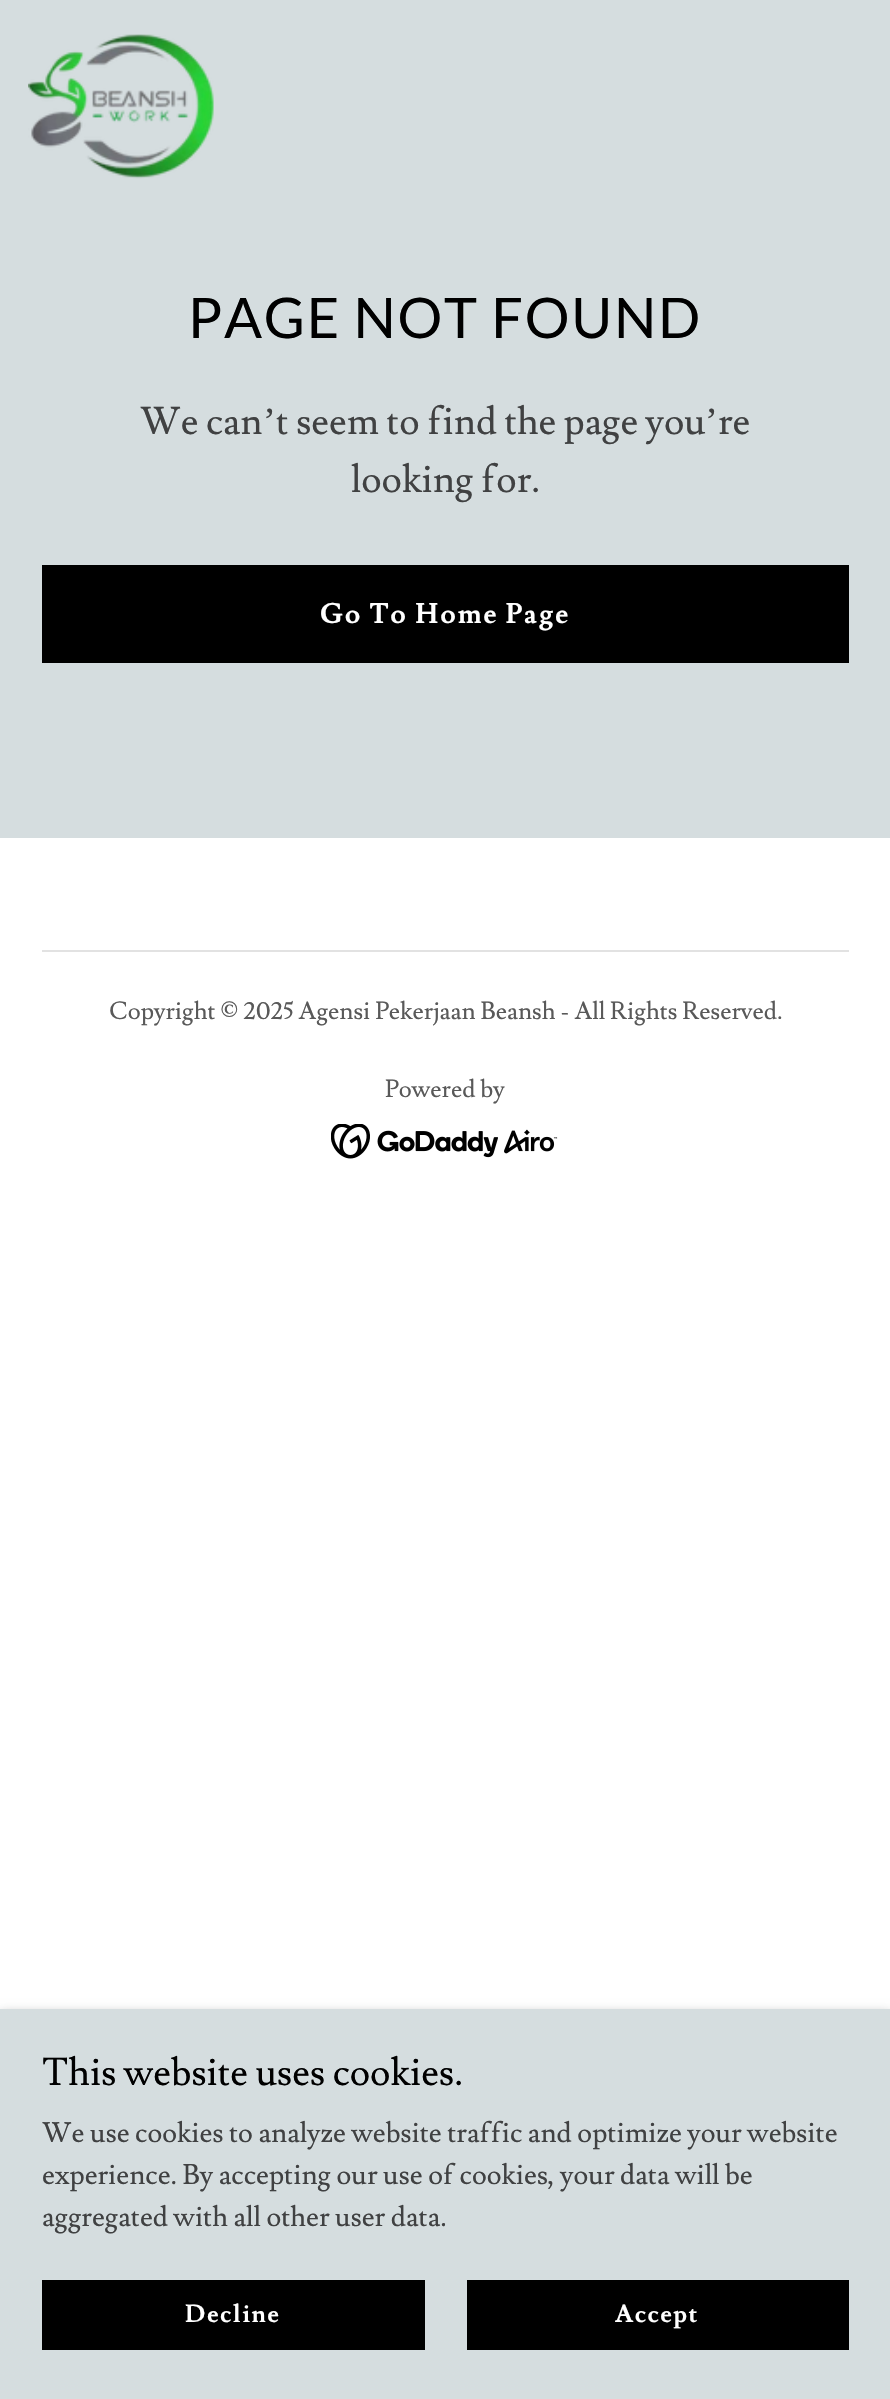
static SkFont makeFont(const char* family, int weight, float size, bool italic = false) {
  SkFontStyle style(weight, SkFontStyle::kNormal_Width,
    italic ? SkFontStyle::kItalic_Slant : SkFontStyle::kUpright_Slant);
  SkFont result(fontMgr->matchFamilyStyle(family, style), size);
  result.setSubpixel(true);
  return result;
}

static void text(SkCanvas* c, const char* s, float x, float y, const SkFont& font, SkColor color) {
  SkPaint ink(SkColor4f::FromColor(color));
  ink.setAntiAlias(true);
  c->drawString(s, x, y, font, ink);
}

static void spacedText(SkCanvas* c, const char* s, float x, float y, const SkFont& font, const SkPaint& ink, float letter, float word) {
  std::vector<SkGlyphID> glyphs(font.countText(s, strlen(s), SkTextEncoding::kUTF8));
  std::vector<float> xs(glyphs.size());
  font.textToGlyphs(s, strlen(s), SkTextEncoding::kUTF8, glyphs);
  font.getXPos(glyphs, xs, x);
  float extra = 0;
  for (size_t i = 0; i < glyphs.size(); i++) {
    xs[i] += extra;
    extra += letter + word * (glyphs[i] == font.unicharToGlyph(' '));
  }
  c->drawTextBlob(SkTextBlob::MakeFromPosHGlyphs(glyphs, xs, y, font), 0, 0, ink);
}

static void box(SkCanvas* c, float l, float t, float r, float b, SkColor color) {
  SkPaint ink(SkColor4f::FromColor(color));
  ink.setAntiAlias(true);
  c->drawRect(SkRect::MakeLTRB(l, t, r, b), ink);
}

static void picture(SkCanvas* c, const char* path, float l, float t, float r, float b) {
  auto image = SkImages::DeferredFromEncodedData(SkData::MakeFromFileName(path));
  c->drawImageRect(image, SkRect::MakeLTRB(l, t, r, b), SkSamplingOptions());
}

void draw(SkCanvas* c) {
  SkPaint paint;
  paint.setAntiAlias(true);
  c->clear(0xffffffff);
  box(c, 0, 0, 890, 838, 0xffd5dddf);
  picture(c, "img_01.png", 28, 34, 214, 179);
  SkFont face1 = makeFont("Lato", 400, 56);
  paint.setColor(0xff000000);
  spacedText(c, "PAGE NOT FOUND", 188, 338, face1, paint, 1.75f, 0);
  SkFont face2 = makeFont("Lusitana", 400, 38.5f);
  text(c, "We can", 140, 434, face2, 0xff404142);
  SkFont face3 = makeFont("Liberation Serif", 400, 38.5f);
  text(c, "’", 263, 434, face3, 0xff404142);
  text(c, "t seem to find the page you", 276, 434, face2, 0xff404142);
  text(c, "’", 705, 434, face3, 0xff404142);
  text(c, "re", 718, 434, face2, 0xff404142);
  text(c, "looking for.", 351, 492, face2, 0xff404142);
  box(c, 42, 565, 849, 663, 0xff000000);
  SkFont face4 = makeFont("Lusitana", 700, 28);
  paint.setColor(0xffffffff);
  spacedText(c, "Go To Home Page", 320, 623, face4, paint, 1.75f, 0);
  box(c, 42, 950, 849, 952, 0xffe2e2e2);
  SkFont face5 = makeFont("Lusitana", 400, 24.5f);
  text(c, "Copyright © 2025 Agensi Pekerjaan Beansh - All Rights Reserved.", 109, 1019, face5, 0xff595959);
  text(c, "Powered by", 385, 1097, face5, 0xff595959);
  picture(c, "img_02.png", 331, 1124, 558, 1159);
  paint.setColor(0x4d000000);
  paint.setMaskFilter(SkMaskFilter::MakeBlur(kNormal_SkBlurStyle, 5));
  c->drawRect(SkRect::MakeLTRB(0, 2013, 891, 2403), paint);
  paint.setMaskFilter(nullptr);
  box(c, 0, 2009, 890, 2399, 0xffd5dddf);
  text(c, "This website uses cookies.", 42, 2085, face2, 0xff000000);
  SkFont face6 = makeFont("Lusitana", 400, 28);
  text(c, "We use cookies to analyze website traffic and optimize your website", 42, 2142, face6, 0xff404142);
  text(c, "experience. By accepting our use of cookies, your data will be", 42, 2184, face6, 0xff404142);
  text(c, "aggregated with all other user data.", 42, 2226, face6, 0xff404142);
  box(c, 42, 2280, 425, 2350, 0xff000000);
  SkFont face7 = makeFont("Lusitana", 700, 24.5f);
  paint.setColor(0xffffffff);
  spacedText(c, "Decline", 185, 2322, face7, paint, 1.5f, 0);
  box(c, 467, 2280, 849, 2350, 0xff000000);
  spacedText(c, "Accept", 615, 2322, face7, paint, 1.5f, 0);
}
